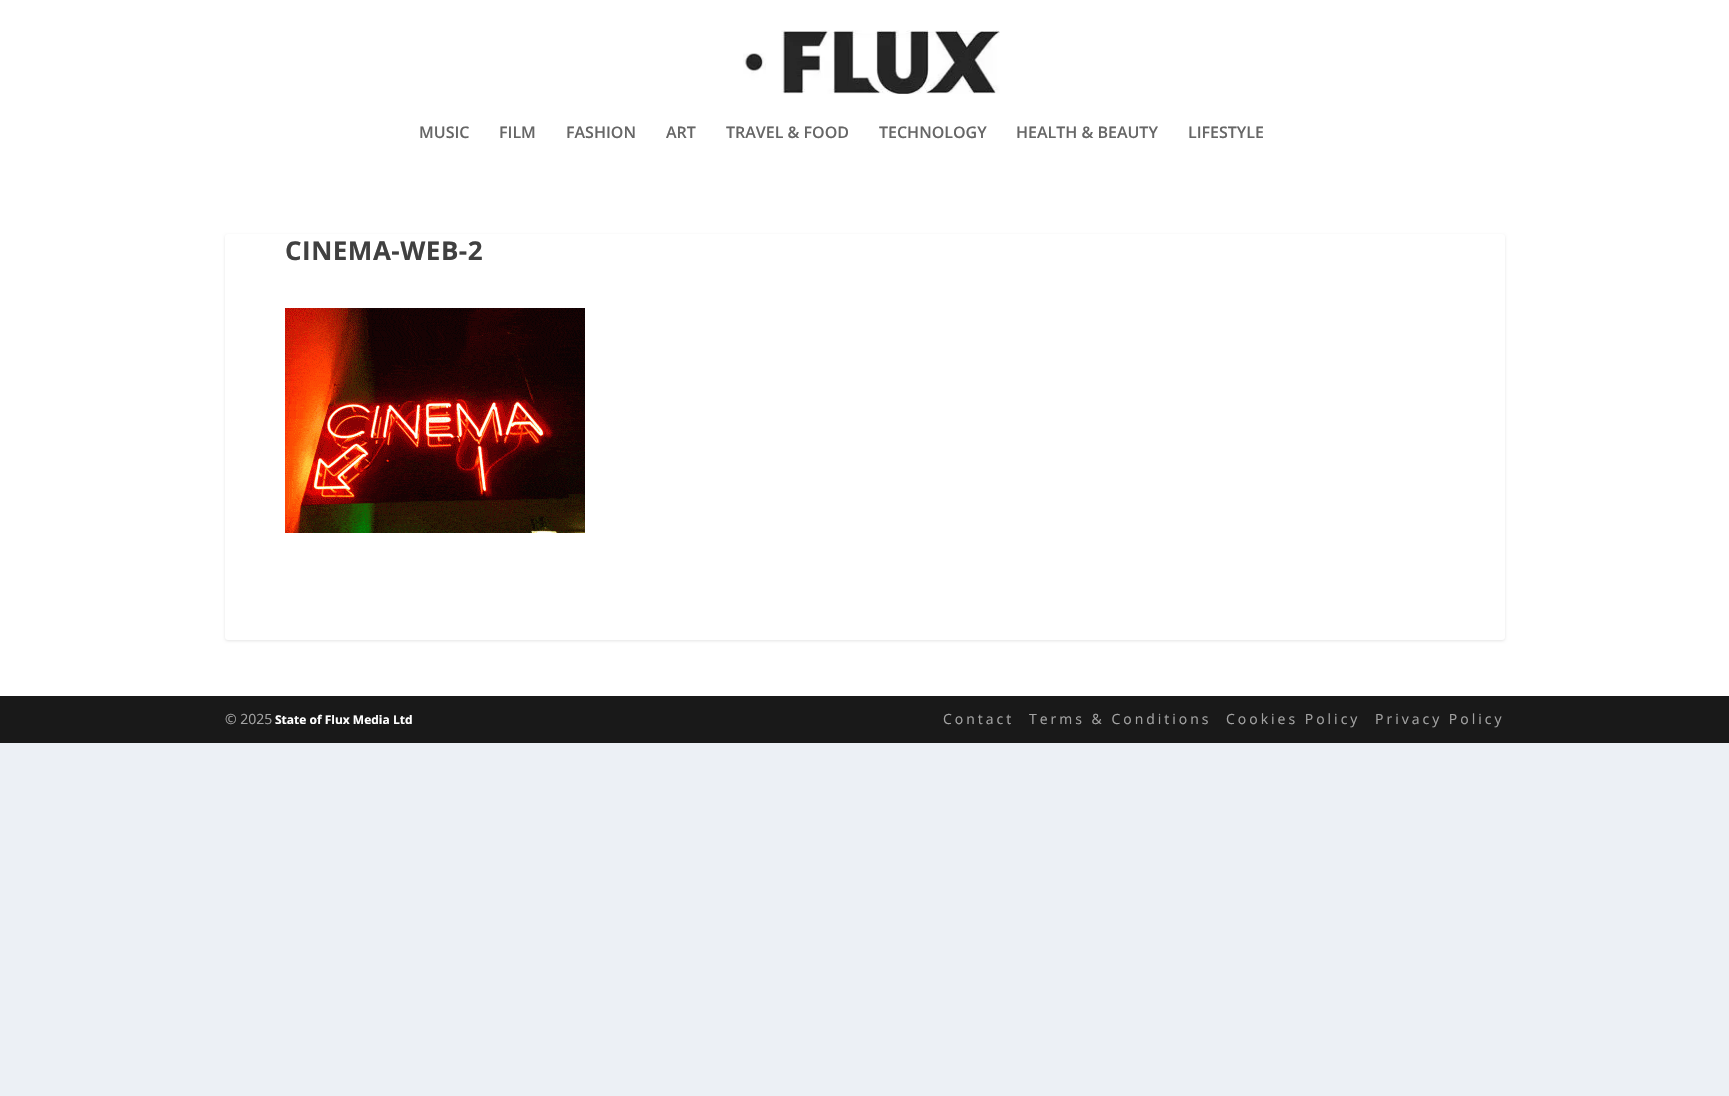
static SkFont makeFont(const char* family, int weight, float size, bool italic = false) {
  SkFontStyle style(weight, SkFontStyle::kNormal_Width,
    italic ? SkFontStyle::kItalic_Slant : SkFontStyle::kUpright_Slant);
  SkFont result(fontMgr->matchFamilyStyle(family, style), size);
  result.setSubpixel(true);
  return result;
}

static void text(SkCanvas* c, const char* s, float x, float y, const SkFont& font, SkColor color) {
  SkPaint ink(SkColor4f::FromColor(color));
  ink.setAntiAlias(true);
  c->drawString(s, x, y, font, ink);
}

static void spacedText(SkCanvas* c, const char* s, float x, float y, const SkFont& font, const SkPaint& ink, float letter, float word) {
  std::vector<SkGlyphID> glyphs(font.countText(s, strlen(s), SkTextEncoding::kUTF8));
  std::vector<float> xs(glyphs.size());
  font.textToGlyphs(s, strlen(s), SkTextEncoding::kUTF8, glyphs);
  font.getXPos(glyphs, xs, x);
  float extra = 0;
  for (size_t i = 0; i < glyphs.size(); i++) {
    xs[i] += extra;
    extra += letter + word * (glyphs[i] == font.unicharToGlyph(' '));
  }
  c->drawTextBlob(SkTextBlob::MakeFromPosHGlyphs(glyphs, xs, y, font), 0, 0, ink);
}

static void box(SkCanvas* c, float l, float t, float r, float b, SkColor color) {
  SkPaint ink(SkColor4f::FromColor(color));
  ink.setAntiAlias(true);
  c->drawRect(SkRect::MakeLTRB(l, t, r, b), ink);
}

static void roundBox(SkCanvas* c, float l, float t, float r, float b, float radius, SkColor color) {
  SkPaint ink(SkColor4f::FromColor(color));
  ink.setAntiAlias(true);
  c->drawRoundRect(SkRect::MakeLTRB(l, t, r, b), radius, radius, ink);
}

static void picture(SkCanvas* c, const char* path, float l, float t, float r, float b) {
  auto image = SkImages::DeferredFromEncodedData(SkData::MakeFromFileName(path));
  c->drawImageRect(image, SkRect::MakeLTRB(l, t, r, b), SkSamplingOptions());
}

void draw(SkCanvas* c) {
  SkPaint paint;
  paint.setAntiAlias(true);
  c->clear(0xffecf0f5);
  box(c, 0, 0, 1729, 696, 0xffffffff);
  picture(c, "img_01.png", 743, 30, 1000, 94);
  SkFont face1 = makeFont("Open Sans", 600, 16);
  text(c, "MUSIC", 419, 138, face1, 0xff666666);
  text(c, "FILM", 499, 138, face1, 0xff666666);
  text(c, "FASHION", 566, 138, face1, 0xff666666);
  text(c, "ART", 666, 138, face1, 0xff666666);
  text(c, "TRAVEL & FOOD", 726, 138, face1, 0xff666666);
  text(c, "TECHNOLOGY", 879, 138, face1, 0xff666666);
  text(c, "HEALTH & BEAUTY", 1016, 138, face1, 0xff666666);
  text(c, "LIFESTYLE", 1188, 138, face1, 0xff666666);
  paint.setColor(0x1a000000);
  paint.setMaskFilter(SkMaskFilter::MakeBlur(kNormal_SkBlurStyle, 1.5f));
  c->drawRoundRect(SkRect::MakeLTRB(225, 235, 1505, 641), 3, 3, paint);
  paint.setMaskFilter(nullptr);
  roundBox(c, 225, 234, 1505, 640, 3, 0xffffffff);
  SkFont face2 = makeFont("Open Sans", 700, 26);
  paint.setColor(0xff404040);
  spacedText(c, "CINEMA-WEB-2", 285, 260, face2, paint, 0.5f, 0);
  picture(c, "img_02.png", 285, 308, 585, 533);
  box(c, 0, 696, 1729, 743, 0xff191919);
  SkFont face3 = makeFont("Open Sans", 400, 14);
  text(c, "© 2025", 225, 724, face3, 0xffa3a3a3);
  SkFont face4 = makeFont("Open Sans", 700, 12);
  text(c, "State of Flux Media Ltd", 275, 724, face4, 0xffffffff);
  paint.setColor(0xffa3a3a3);
  spacedText(c, "Contact", 943, 724, face3, paint, 3, 0);
  spacedText(c, "Terms & Conditions", 1029, 724, face3, paint, 3, 0);
  spacedText(c, "Cookies Policy", 1226, 724, face3, paint, 3, 0);
  spacedText(c, "Privacy Policy", 1375, 724, face3, paint, 3, 0);
}
